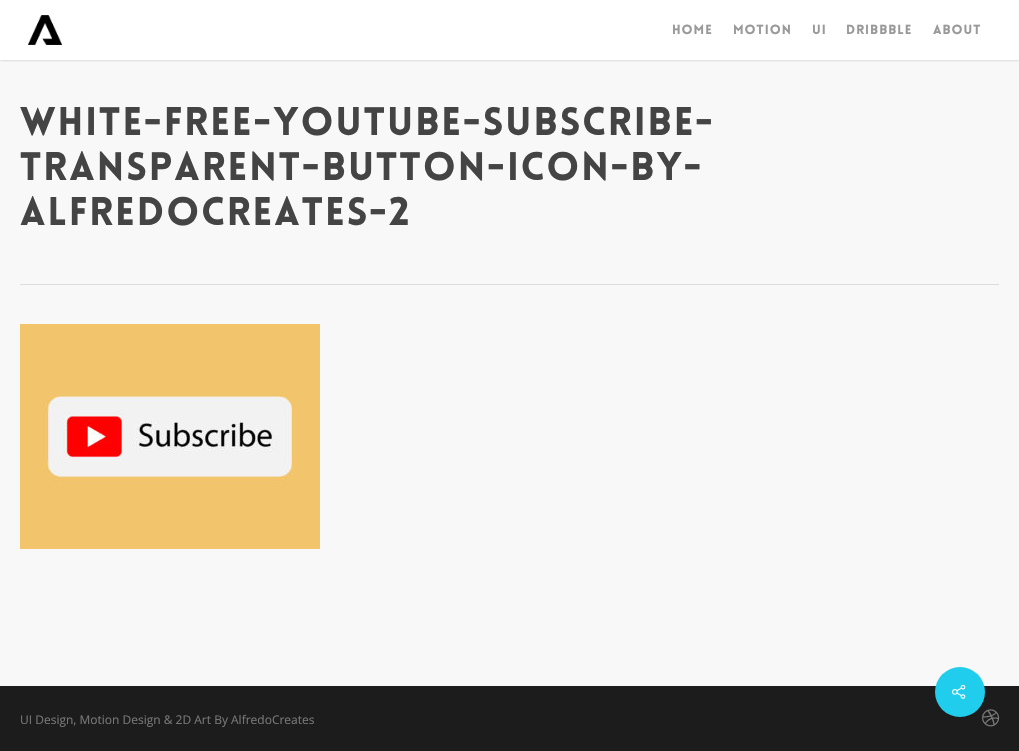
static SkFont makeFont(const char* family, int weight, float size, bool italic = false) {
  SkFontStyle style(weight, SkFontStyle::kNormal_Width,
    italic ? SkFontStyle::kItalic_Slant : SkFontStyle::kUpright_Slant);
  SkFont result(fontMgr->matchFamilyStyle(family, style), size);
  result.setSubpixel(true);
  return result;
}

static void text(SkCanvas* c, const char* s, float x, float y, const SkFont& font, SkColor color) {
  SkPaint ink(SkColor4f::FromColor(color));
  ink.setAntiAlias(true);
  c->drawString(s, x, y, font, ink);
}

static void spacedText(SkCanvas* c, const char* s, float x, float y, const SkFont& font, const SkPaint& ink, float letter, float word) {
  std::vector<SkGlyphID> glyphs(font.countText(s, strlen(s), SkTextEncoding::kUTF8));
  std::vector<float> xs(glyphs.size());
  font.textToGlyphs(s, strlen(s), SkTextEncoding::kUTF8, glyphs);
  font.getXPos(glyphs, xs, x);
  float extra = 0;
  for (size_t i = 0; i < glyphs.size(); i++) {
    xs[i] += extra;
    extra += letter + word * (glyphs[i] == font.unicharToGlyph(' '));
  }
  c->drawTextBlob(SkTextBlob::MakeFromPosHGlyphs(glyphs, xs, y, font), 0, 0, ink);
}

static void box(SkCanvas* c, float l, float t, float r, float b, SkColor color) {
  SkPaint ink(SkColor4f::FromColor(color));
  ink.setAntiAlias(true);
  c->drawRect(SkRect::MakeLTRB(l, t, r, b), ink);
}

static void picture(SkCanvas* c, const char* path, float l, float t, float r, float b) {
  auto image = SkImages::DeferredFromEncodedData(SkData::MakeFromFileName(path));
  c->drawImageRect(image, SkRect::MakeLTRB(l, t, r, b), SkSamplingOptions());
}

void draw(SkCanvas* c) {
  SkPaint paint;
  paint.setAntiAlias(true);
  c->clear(0xffffffff);
  box(c, 0, 60, 1019, 686, 0xfff8f8f8);
  c->save();
  c->clipRect(SkRect::MakeLTRB(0, 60, 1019, 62));
  paint.setColor(0x38000000);
  paint.setMaskFilter(SkMaskFilter::MakeBlur(kNormal_SkBlurStyle, 1.5f));
  c->drawRect(SkRect::MakeLTRB(0, 0, 1019, 60), paint);
  paint.setMaskFilter(nullptr);
  c->restore();
  picture(c, "img_01.png", 28, 15, 62, 45);
  SkFont face1 = makeFont("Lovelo", 900, 13);
  paint.setColor(0xff999999);
  spacedText(c, "Home", 672, 34, face1, paint, 1, 0);
  spacedText(c, "Motion", 733, 34, face1, paint, 1, 0);
  spacedText(c, "UI", 812, 34, face1, paint, 1, 0);
  spacedText(c, "Dribbble", 846, 34, face1, paint, 1, 0);
  spacedText(c, "About", 933, 34, face1, paint, 1, 0);
  box(c, 20, 284, 999, 285, 0xffdddddd);
  SkFont face2 = makeFont("Lovelo", 900, 39);
  paint.setColor(0xff444444);
  spacedText(c, "White-Free-YouTube-Subscribe-", 20, 135, face2, paint, 2, 0);
  spacedText(c, "Transparent-Button-Icon-By-", 20, 180, face2, paint, 2, 0);
  spacedText(c, "AlfredoCreates-2", 20, 225, face2, paint, 2, 0);
  picture(c, "img_02.png", 20, 324, 320, 549);
  box(c, 0, 686, 1019, 751, 0xff1c1c1c);
  picture(c, "img_04.png", 982, 709, 1000, 727);
  paint.setColor(0xff21cdec);
  c->drawCircle(960, 692, 25, paint);
  picture(c, "img_03.png", 952, 684, 966, 699);
  SkFont face3 = makeFont("Open Sans", 400, 12);
  text(c, "UI Design, Motion Design & 2D Art By AlfredoCreates", 20, 724, face3, 0xff777777);
}
